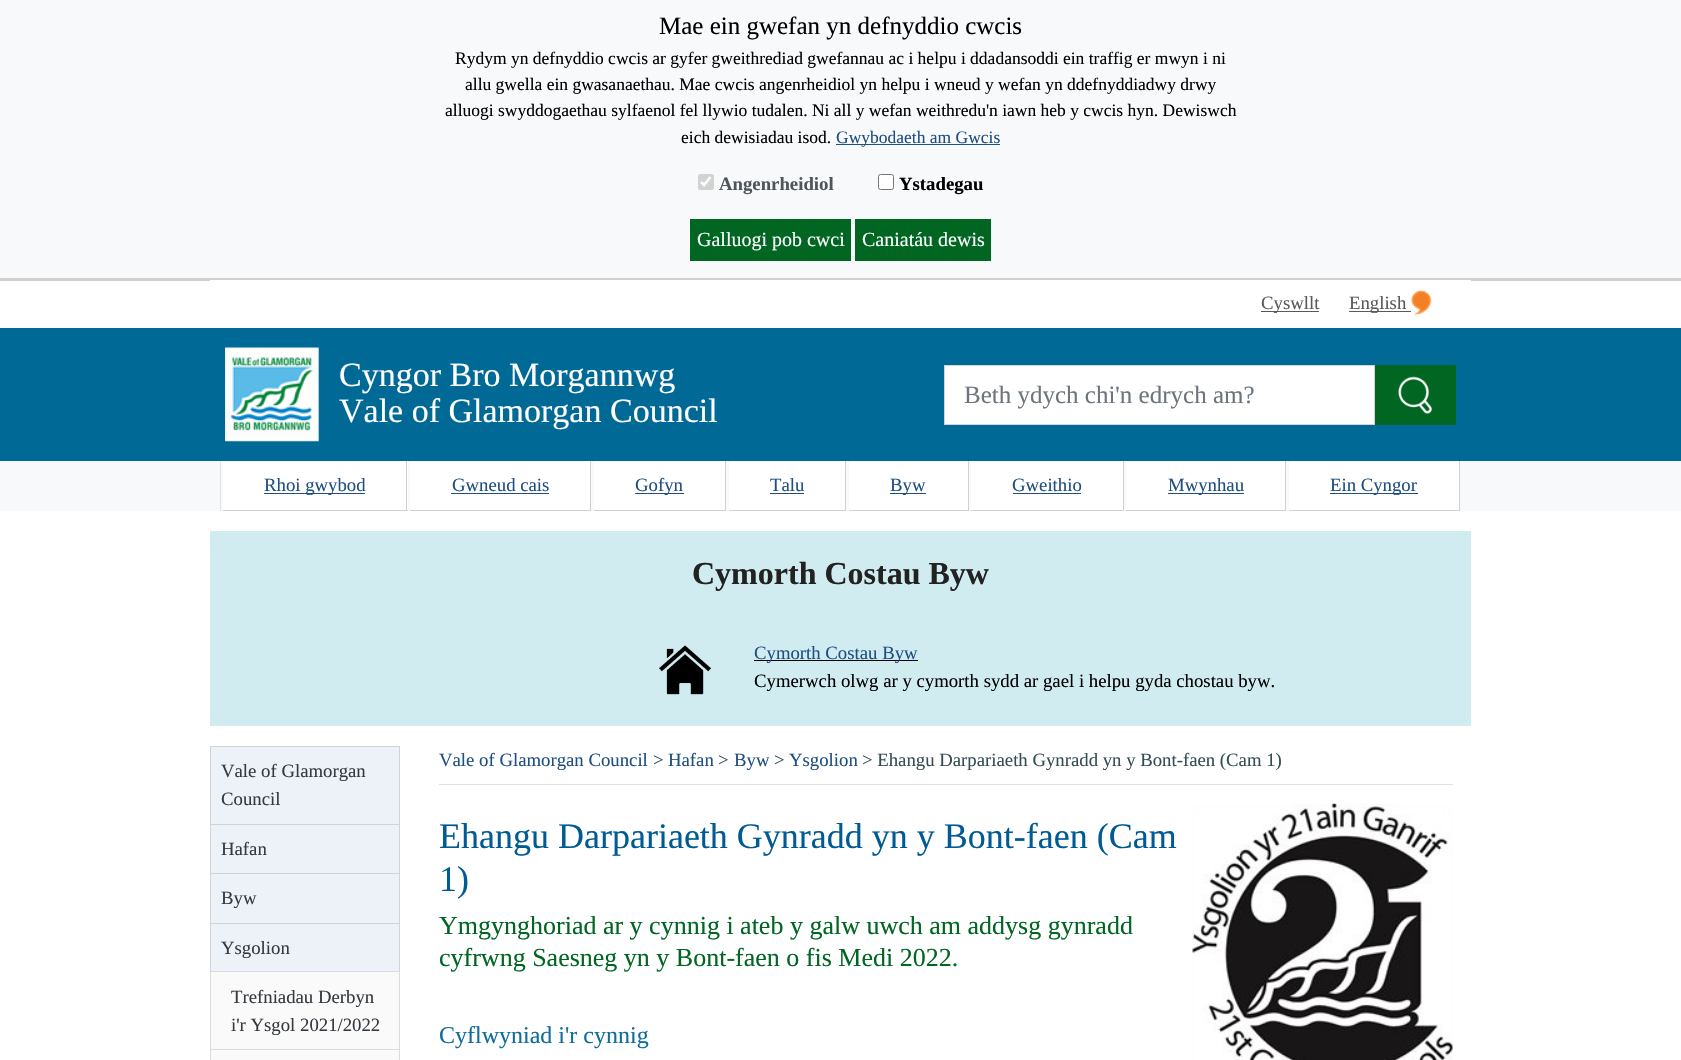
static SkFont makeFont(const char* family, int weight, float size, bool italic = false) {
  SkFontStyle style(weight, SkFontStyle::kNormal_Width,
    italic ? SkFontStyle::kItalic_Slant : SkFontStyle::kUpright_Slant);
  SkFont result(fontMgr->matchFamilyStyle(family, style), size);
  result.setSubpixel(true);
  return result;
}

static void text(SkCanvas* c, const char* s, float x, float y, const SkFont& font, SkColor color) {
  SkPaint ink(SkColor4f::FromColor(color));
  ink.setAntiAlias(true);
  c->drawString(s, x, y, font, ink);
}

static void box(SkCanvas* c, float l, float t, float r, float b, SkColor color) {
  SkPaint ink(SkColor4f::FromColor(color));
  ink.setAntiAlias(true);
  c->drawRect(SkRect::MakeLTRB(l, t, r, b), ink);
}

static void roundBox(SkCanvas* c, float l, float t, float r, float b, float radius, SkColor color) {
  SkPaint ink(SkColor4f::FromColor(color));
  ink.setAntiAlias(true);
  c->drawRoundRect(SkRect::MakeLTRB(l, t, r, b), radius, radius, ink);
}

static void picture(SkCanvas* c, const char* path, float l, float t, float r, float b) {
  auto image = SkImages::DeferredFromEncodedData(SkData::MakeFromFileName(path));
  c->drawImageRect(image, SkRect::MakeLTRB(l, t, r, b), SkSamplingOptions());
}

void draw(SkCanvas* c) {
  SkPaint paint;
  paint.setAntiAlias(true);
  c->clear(0xffffffff);
  box(c, 0, 0, 1681, 278, 0xfff8f9fa);
  box(c, 0, 278, 1681, 281, 0xffd0d0d0);
  SkFont face1 = makeFont("Liberation Serif", 400, 25);
  text(c, "Mae ein gwefan yn defnyddio cwcis", 659, 34, face1, 0xff000000);
  SkFont face2 = makeFont("Liberation Serif", 400, 17.5f);
  text(c, "Rydym yn defnyddio cwcis ar gyfer gweithrediad gwefannau ac i helpu i ddadansoddi ein traffig er mwyn i ni", 455, 64, face2, 0xff000000);
  text(c, "allu gwella ein gwasanaethau. Mae cwcis angenrheidiol yn helpu i wneud y wefan yn ddefnyddiadwy drwy", 465, 90, face2, 0xff000000);
  text(c, "alluogi swyddogaethau sylfaenol fel llywio tudalen. Ni all y wefan weithredu'n iawn heb y cwcis hyn. Dewiswch", 445, 116, face2, 0xff000000);
  text(c, "eich dewisiadau isod.", 681, 143, face2, 0xff000000);
  box(c, 836, 144, 1000, 145, 0xff1f4f82);
  text(c, "Gwybodaeth am Gwcis", 836, 143, face2, 0xff1f4f82);
  roundBox(c, 698, 174, 714, 190, 2.5f, 0xffd1d2d2);
  paint.setStyle(SkPaint::kStroke_Style);
  paint.setStrokeWidth(2.6f);
  paint.setColor(0xffffffff);
  c->drawPath(SkPathBuilder().moveTo(701, 182).lineTo(704, 185).lineTo(710.5f, 177).detach(), paint);
  SkFont face3 = makeFont("Liberation Serif", 700, 18.75f);
  text(c, "Angenrheidiol", 719, 190, face3, 0xff4e565a);
  paint.setStyle(SkPaint::kFill_Style);
  c->drawRoundRect(SkRect::MakeLTRB(878.5f, 174.5f, 893.5f, 189.5f), 2, 2, paint);
  paint.setStyle(SkPaint::kStroke_Style);
  paint.setStrokeWidth(1);
  paint.setColor(0xff767676);
  c->drawRoundRect(SkRect::MakeLTRB(878.5f, 174.5f, 893.5f, 189.5f), 2, 2, paint);
  text(c, "Ystadegau", 899, 190, face3, 0xff000000);
  box(c, 690, 219, 851, 261, 0xff006622);
  SkFont face4 = makeFont("Liberation Serif", 400, 20);
  text(c, "Galluogi pob cwci", 697, 246, face4, 0xffffffff);
  box(c, 855, 219, 991, 261, 0xff006622);
  text(c, "Caniatáu dewis", 862, 246, face4, 0xffffffff);
  box(c, 210, 280, 1471, 281, 0xffffffff);
  box(c, 1261, 311, 1319, 312, 0xff595959);
  SkFont face5 = makeFont("Liberation Serif", 400, 18.75f);
  text(c, "Cyswllt", 1261, 309, face5, 0xff595959);
  box(c, 1349, 311, 1411, 312, 0xff595959);
  text(c, "English", 1349, 309, face5, 0xff595959);
  picture(c, "img_01.png", 1411, 290, 1432, 315);
  box(c, 0, 328, 1681, 461, 0xff006996);
  picture(c, "img_02.png", 225, 347, 319, 442);
  SkFont face6 = makeFont("Liberation Serif", 400, 34);
  text(c, "Cyngor Bro Morgannwg", 339, 386, face6, 0xffffffff);
  text(c, "Vale of Glamorgan Council", 339, 422, face6, 0xffffffff);
  paint.setStyle(SkPaint::kFill_Style);
  paint.setColor(0xffffffff);
  c->drawRect(SkRect::MakeLTRB(944.5f, 365.5f, 1374.5f, 424.5f), paint);
  paint.setStyle(SkPaint::kStroke_Style);
  paint.setColor(0xffced4da);
  c->drawRect(SkRect::MakeLTRB(944.5f, 365.5f, 1374.5f, 424.5f), paint);
  text(c, "Beth ydych chi'n edrych am?", 964, 403, face1, 0xff6c757d);
  box(c, 1375, 365, 1456, 425, 0xff006622);
  picture(c, "img_03.png", 1398, 376, 1432, 414);
  box(c, 0, 461, 1681, 511, 0xfff8f9fa);
  box(c, 220, 461, 221, 511, 0xffdee2e6);
  box(c, 223, 461, 408, 510, 0xffffffff);
  box(c, 406, 461, 407, 511, 0xffd0d0d0);
  box(c, 223, 510, 408, 511, 0xffd0d0d0);
  box(c, 264, 493, 365, 494, 0xff1f4f82);
  text(c, "Rhoi gwybod", 264, 491, face5, 0xff1f4f82);
  box(c, 410, 461, 590, 510, 0xffffffff);
  box(c, 590, 461, 591, 511, 0xffd0d0d0);
  box(c, 410, 510, 591, 511, 0xffd0d0d0);
  text(c, "Gwneud cais", 452, 491, face5, 0xff1f4f82);
  box(c, 451, 493, 549, 494, 0xff1f4f82);
  box(c, 594, 461, 725, 510, 0xffffffff);
  box(c, 725, 461, 726, 511, 0xffd0d0d0);
  box(c, 594, 510, 726, 511, 0xffd0d0d0);
  box(c, 635, 493, 684, 494, 0xff1f4f82);
  text(c, "Gofyn", 635, 491, face5, 0xff1f4f82);
  box(c, 729, 461, 845, 510, 0xffffffff);
  box(c, 845, 461, 846, 511, 0xffd0d0d0);
  box(c, 729, 510, 846, 511, 0xffd0d0d0);
  text(c, "Talu", 770, 491, face5, 0xff1f4f82);
  box(c, 770, 493, 804, 494, 0xff1f4f82);
  box(c, 849, 461, 968, 510, 0xffffffff);
  box(c, 968, 461, 969, 511, 0xffd0d0d0);
  box(c, 849, 510, 969, 511, 0xffd0d0d0);
  box(c, 890, 493, 926, 494, 0xff1f4f82);
  text(c, "Byw", 890, 491, face5, 0xff1f4f82);
  box(c, 971, 461, 1123, 510, 0xffffffff);
  box(c, 1123, 461, 1124, 511, 0xffd0d0d0);
  box(c, 971, 510, 1124, 511, 0xffd0d0d0);
  text(c, "Gweithio", 1012, 491, face5, 0xff1f4f82);
  box(c, 1013, 493, 1081, 494, 0xff1f4f82);
  box(c, 1126, 461, 1285, 510, 0xffffffff);
  box(c, 1285, 461, 1286, 511, 0xffd0d0d0);
  box(c, 1126, 510, 1286, 511, 0xffd0d0d0);
  box(c, 1168, 493, 1244, 494, 0xff1f4f82);
  text(c, "Mwynhau", 1168, 491, face5, 0xff1f4f82);
  box(c, 1289, 461, 1459, 510, 0xffffffff);
  box(c, 1459, 461, 1460, 511, 0xffd0d0d0);
  box(c, 1289, 510, 1460, 511, 0xffd0d0d0);
  box(c, 1330, 493, 1418, 494, 0xff1f4f82);
  text(c, "Ein Cyngor", 1330, 491, face5, 0xff1f4f82);
  box(c, 210, 531, 1471, 726, 0xffd1ecf1);
  SkFont face7 = makeFont("Liberation Serif", 700, 32);
  text(c, "Cymorth Costau Byw", 692, 584, face7, 0xff222222);
  picture(c, "img_04.png", 659, 645, 712, 695);
  box(c, 754, 660, 918, 661, 0xff000000);
  text(c, "Cymorth Costau Byw", 754, 659, face5, 0xff1f4f82);
  text(c, "Cymerwch olwg ar y cymorth sydd ar gael i helpu gyda chostau byw.", 754, 687, face5, 0xff000000);
  paint.setStyle(SkPaint::kFill_Style);
  paint.setColor(0xffedf2f8);
  c->drawRect(SkRect::MakeLTRB(210.5f, 746.5f, 399.5f, 824.5f), paint);
  paint.setStyle(SkPaint::kStroke_Style);
  paint.setColor(0xffcfd4d9);
  c->drawRect(SkRect::MakeLTRB(210.5f, 746.5f, 399.5f, 824.5f), paint);
  text(c, "Vale of Glamorgan", 221, 777, face5, 0xff343a40);
  text(c, "Council", 221, 805, face5, 0xff343a40);
  paint.setStyle(SkPaint::kFill_Style);
  paint.setColor(0xffedf2f8);
  c->drawRect(SkRect::MakeLTRB(210.5f, 824.5f, 399.5f, 873.5f), paint);
  paint.setStyle(SkPaint::kStroke_Style);
  paint.setColor(0xffcfd4d9);
  c->drawRect(SkRect::MakeLTRB(210.5f, 824.5f, 399.5f, 873.5f), paint);
  text(c, "Hafan", 221, 855, face5, 0xff343a40);
  paint.setStyle(SkPaint::kFill_Style);
  paint.setColor(0xffedf2f8);
  c->drawRect(SkRect::MakeLTRB(210.5f, 873.5f, 399.5f, 923.5f), paint);
  paint.setStyle(SkPaint::kStroke_Style);
  paint.setColor(0xffcfd4d9);
  c->drawRect(SkRect::MakeLTRB(210.5f, 873.5f, 399.5f, 923.5f), paint);
  text(c, "Byw", 221, 904, face5, 0xff343a40);
  box(c, 211, 924, 399, 971, 0xffedf2f8);
  c->drawRect(SkRect::MakeLTRB(210.5f, 923.5f, 399.5f, 972.5f), paint);
  text(c, "Ysgolion", 221, 954, face5, 0xff343a40);
  paint.setStyle(SkPaint::kFill_Style);
  paint.setColor(0xfffafafa);
  c->drawRect(SkRect::MakeLTRB(210.5f, 971.5f, 399.5f, 1049.5f), paint);
  paint.setStyle(SkPaint::kStroke_Style);
  paint.setColor(0xffdbdbdb);
  c->drawRect(SkRect::MakeLTRB(210.5f, 971.5f, 399.5f, 1049.5f), paint);
  text(c, "Trefniadau Derbyn", 231, 1003, face5, 0xff343a40);
  text(c, "i'r Ysgol 2021/2022", 231, 1031, face5, 0xff343a40);
  paint.setStyle(SkPaint::kFill_Style);
  paint.setColor(0xfffafafa);
  c->drawRect(SkRect::MakeLTRB(210.5f, 1049.5f, 399.5f, 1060.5f), paint);
  paint.setStyle(SkPaint::kStroke_Style);
  paint.setColor(0xffdbdbdb);
  c->drawRect(SkRect::MakeLTRB(210.5f, 1049.5f, 399.5f, 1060.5f), paint);
  box(c, 439, 784, 1453, 785, 0xffdee2e6);
  text(c, "Vale of Glamorgan Council", 439, 766, face5, 0xff1f4f82);
  text(c, ">", 653, 766, face5, 0xff344d52);
  text(c, "Hafan", 668, 766, face5, 0xff1f4f82);
  text(c, ">", 718, 766, face5, 0xff344d52);
  text(c, "Byw", 734, 766, face5, 0xff1f4f82);
  text(c, ">", 774, 766, face5, 0xff344d52);
  text(c, "Ysgolion", 789, 766, face5, 0xff1f4f82);
  text(c, "> Ehangu Darpariaeth Gynradd yn y Bont-faen (Cam 1)", 862, 766, face5, 0xff344d52);
  SkFont face8 = makeFont("Liberation Serif", 400, 36);
  text(c, "Ehangu Darpariaeth Gynradd yn y Bont-faen (Cam", 439, 848, face8, 0xff005b94);
  text(c, "1)", 439, 891, face8, 0xff005b94);
  picture(c, "img_05.png", 1192, 803, 1453, 1060);
  SkFont face9 = makeFont("Liberation Serif", 400, 26);
  text(c, "Ymgynghoriad ar y cynnig i ateb y galw uwch am addysg gynradd", 439, 934, face9, 0xff006622);
  text(c, "cyfrwng Saesneg yn y Bont-faen o fis Medi 2022.", 439, 966, face9, 0xff006622);
  SkFont face10 = makeFont("Liberation Serif", 400, 24);
  text(c, "Cyflwyniad i'r cynnig", 439, 1043, face10, 0xff0e6d9d);
}
